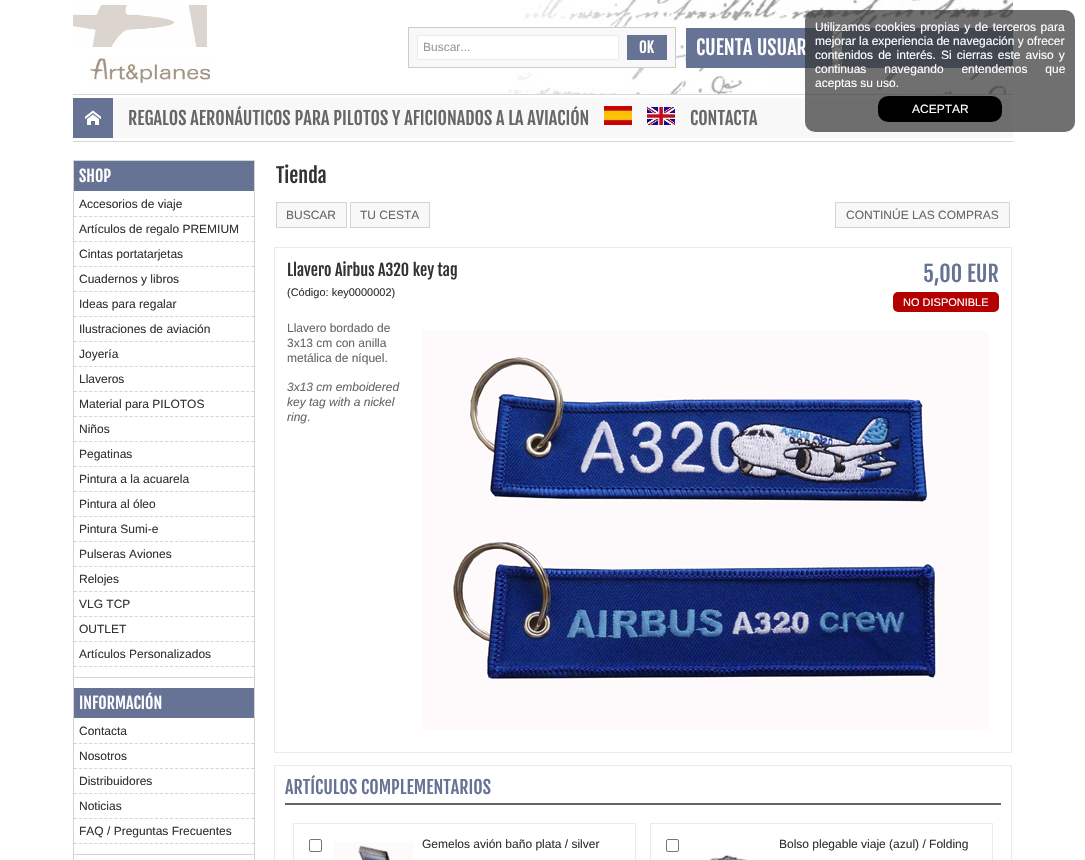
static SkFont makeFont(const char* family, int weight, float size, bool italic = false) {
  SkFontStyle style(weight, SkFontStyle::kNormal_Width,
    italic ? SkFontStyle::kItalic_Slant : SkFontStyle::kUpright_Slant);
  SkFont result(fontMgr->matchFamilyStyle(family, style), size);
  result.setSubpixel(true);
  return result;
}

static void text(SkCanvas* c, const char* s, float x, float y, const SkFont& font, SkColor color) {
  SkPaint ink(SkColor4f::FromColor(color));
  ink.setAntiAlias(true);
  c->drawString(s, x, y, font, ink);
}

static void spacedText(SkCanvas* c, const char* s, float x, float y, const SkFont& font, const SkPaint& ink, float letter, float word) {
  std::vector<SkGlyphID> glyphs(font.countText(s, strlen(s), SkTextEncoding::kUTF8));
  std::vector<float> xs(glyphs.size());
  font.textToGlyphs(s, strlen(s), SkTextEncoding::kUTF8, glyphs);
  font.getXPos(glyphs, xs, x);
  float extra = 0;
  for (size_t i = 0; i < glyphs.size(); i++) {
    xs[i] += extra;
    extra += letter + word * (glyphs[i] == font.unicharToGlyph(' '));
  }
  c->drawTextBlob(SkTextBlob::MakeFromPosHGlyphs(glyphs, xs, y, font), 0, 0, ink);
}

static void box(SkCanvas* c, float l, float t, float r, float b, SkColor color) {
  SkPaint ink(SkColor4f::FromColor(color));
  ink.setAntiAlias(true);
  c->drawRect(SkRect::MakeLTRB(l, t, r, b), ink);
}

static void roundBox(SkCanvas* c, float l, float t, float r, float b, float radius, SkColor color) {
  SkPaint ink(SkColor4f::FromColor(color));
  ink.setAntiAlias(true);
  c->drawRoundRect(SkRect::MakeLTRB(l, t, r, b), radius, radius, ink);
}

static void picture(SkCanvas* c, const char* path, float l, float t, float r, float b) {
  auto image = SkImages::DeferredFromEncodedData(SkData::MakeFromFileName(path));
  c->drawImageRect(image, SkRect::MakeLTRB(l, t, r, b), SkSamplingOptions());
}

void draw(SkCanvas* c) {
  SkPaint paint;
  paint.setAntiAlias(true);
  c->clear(0xffffffff);
  picture(c, "img_01.png", 500, 0, 1013, 94);
  box(c, 686, 28, 832, 68, 0xff667394);
  SkFont face1 = makeFont("Fjalla One", 400, 20);
  text(c, "CUENTA USUAR", 696, 55, face1, 0xffffffff);
  box(c, 842, 28, 1013, 68, 0xff667394);
  box(c, 73, 94, 1013, 95, 0xffd6d6d6);
  box(c, 113, 98, 1013, 138, 0xfff8f8f8);
  roundBox(c, 805, 10, 1075, 132, 10, 0xb3333333);
  SkFont face2 = makeFont("Liberation Sans", 400, 12);
  paint.setColor(0xffffffff);
  spacedText(c, "Utilizamos cookies propias y de terceros para", 815, 31, face2, paint, 0, 1.25f);
  text(c, "mejorar la experiencia de navegación y ofrecer", 815, 45, face2, 0xffffffff);
  spacedText(c, "contenidos de interés. Si cierras este aviso y", 815, 59, face2, paint, 0, 1.75f);
  spacedText(c, "continuas navegando entendemos que", 815, 73, face2, paint, 0, 14.5f);
  text(c, "aceptas su uso.", 815, 87, face2, 0xffffffff);
  roundBox(c, 878, 96, 1002, 122, 10, 0xff000000);
  text(c, "ACEPTAR", 912, 113, face2, 0xffffffff);
  picture(c, "img_02.png", 73, 5, 207, 47);
  paint.setColor(0xfff8f8f8);
  c->drawRect(SkRect::MakeLTRB(408.5f, 27.5f, 675.5f, 67.5f), paint);
  paint.setStyle(SkPaint::kStroke_Style);
  paint.setStrokeWidth(1);
  paint.setColor(0xffcccccc);
  c->drawRect(SkRect::MakeLTRB(408.5f, 27.5f, 675.5f, 67.5f), paint);
  paint.setStyle(SkPaint::kFill_Style);
  paint.setColor(0xffffffff);
  c->drawRect(SkRect::MakeLTRB(417.5f, 35.5f, 618.5f, 59.5f), paint);
  paint.setStyle(SkPaint::kStroke_Style);
  paint.setColor(0xffebebeb);
  c->drawRect(SkRect::MakeLTRB(417.5f, 35.5f, 618.5f, 59.5f), paint);
  text(c, "Buscar...", 423, 51, face2, 0xff999999);
  box(c, 627, 35, 667, 60, 0xff667394);
  SkFont face3 = makeFont("Fjalla One", 400, 15);
  text(c, "OK", 639, 53, face3, 0xffffffff);
  box(c, 73, 98, 113, 138, 0xff667394);
  picture(c, "img_03.png", 85, 110, 101, 125);
  picture(c, "img_04.png", 90, 58, 210, 84);
  box(c, 73, 141, 1013, 142, 0xffd6d6d6);
  SkFont face4 = makeFont("Fjalla One", 400, 18);
  text(c, "REGALOS AERONÁUTICOS PARA PILOTOS Y AFICIONADOS A LA AVIACIÓN", 128, 125, face4, 0xff666666);
  picture(c, "img_05.png", 604, 106, 632, 125);
  picture(c, "img_06.png", 647, 107, 675, 125);
  text(c, "CONTACTA", 690, 125, face4, 0xff666666);
  paint.setColor(0xffd4d4d4);
  c->drawRect(SkRect::MakeLTRB(73.5f, 160.5f, 254.5f, 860.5f), paint);
  box(c, 74, 161, 254, 191, 0xff667394);
  SkFont face5 = makeFont("Fjalla One", 400, 16);
  text(c, "SHOP", 79, 182, face5, 0xffffffff);
  paint.setPathEffect(SkDashPathEffect::Make({{3, 2.06f}}, 0));
  c->drawPath(SkPathBuilder().moveTo(74, 216.5f).lineTo(254, 216.5f).detach(), paint);
  paint.setPathEffect(nullptr);
  text(c, "Accesorios de viaje", 79, 208, face2, 0xff333333);
  paint.setPathEffect(SkDashPathEffect::Make({{3, 2.06f}}, 0));
  c->drawPath(SkPathBuilder().moveTo(74, 241.5f).lineTo(254, 241.5f).detach(), paint);
  paint.setPathEffect(nullptr);
  text(c, "Artículos de regalo PREMIUM", 79, 233, face2, 0xff333333);
  paint.setPathEffect(SkDashPathEffect::Make({{3, 2.06f}}, 0));
  c->drawPath(SkPathBuilder().moveTo(74, 266.5f).lineTo(254, 266.5f).detach(), paint);
  paint.setPathEffect(nullptr);
  text(c, "Cintas portatarjetas", 79, 258, face2, 0xff333333);
  paint.setPathEffect(SkDashPathEffect::Make({{3, 2.06f}}, 0));
  c->drawPath(SkPathBuilder().moveTo(74, 291.5f).lineTo(254, 291.5f).detach(), paint);
  paint.setPathEffect(nullptr);
  text(c, "Cuadernos y libros", 79, 283, face2, 0xff333333);
  paint.setPathEffect(SkDashPathEffect::Make({{3, 2.06f}}, 0));
  c->drawPath(SkPathBuilder().moveTo(74, 316.5f).lineTo(254, 316.5f).detach(), paint);
  paint.setPathEffect(nullptr);
  text(c, "Ideas para regalar", 79, 308, face2, 0xff333333);
  paint.setPathEffect(SkDashPathEffect::Make({{3, 2.06f}}, 0));
  c->drawPath(SkPathBuilder().moveTo(74, 341.5f).lineTo(254, 341.5f).detach(), paint);
  paint.setPathEffect(nullptr);
  text(c, "Ilustraciones de aviación", 79, 333, face2, 0xff333333);
  paint.setPathEffect(SkDashPathEffect::Make({{3, 2.06f}}, 0));
  c->drawPath(SkPathBuilder().moveTo(74, 366.5f).lineTo(254, 366.5f).detach(), paint);
  paint.setPathEffect(nullptr);
  text(c, "Joyería", 79, 358, face2, 0xff333333);
  paint.setPathEffect(SkDashPathEffect::Make({{3, 2.06f}}, 0));
  c->drawPath(SkPathBuilder().moveTo(74, 391.5f).lineTo(254, 391.5f).detach(), paint);
  paint.setPathEffect(nullptr);
  text(c, "Llaveros", 79, 383, face2, 0xff333333);
  paint.setPathEffect(SkDashPathEffect::Make({{3, 2.06f}}, 0));
  c->drawPath(SkPathBuilder().moveTo(74, 416.5f).lineTo(254, 416.5f).detach(), paint);
  paint.setPathEffect(nullptr);
  text(c, "Material para PILOTOS", 79, 408, face2, 0xff333333);
  paint.setPathEffect(SkDashPathEffect::Make({{3, 2.06f}}, 0));
  c->drawPath(SkPathBuilder().moveTo(74, 441.5f).lineTo(254, 441.5f).detach(), paint);
  paint.setPathEffect(nullptr);
  text(c, "Niños", 79, 433, face2, 0xff333333);
  paint.setPathEffect(SkDashPathEffect::Make({{3, 2.06f}}, 0));
  c->drawPath(SkPathBuilder().moveTo(74, 466.5f).lineTo(254, 466.5f).detach(), paint);
  paint.setPathEffect(nullptr);
  text(c, "Pegatinas", 79, 458, face2, 0xff333333);
  paint.setPathEffect(SkDashPathEffect::Make({{3, 2.06f}}, 0));
  c->drawPath(SkPathBuilder().moveTo(74, 491.5f).lineTo(254, 491.5f).detach(), paint);
  paint.setPathEffect(nullptr);
  text(c, "Pintura a la acuarela", 79, 483, face2, 0xff333333);
  paint.setPathEffect(SkDashPathEffect::Make({{3, 2.06f}}, 0));
  c->drawPath(SkPathBuilder().moveTo(74, 516.5f).lineTo(254, 516.5f).detach(), paint);
  paint.setPathEffect(nullptr);
  text(c, "Pintura al óleo", 79, 508, face2, 0xff333333);
  paint.setPathEffect(SkDashPathEffect::Make({{3, 2.06f}}, 0));
  c->drawPath(SkPathBuilder().moveTo(74, 541.5f).lineTo(254, 541.5f).detach(), paint);
  paint.setPathEffect(nullptr);
  text(c, "Pintura Sumi-e", 79, 533, face2, 0xff333333);
  paint.setPathEffect(SkDashPathEffect::Make({{3, 2.06f}}, 0));
  c->drawPath(SkPathBuilder().moveTo(74, 566.5f).lineTo(254, 566.5f).detach(), paint);
  paint.setPathEffect(nullptr);
  text(c, "Pulseras Aviones", 79, 558, face2, 0xff333333);
  paint.setPathEffect(SkDashPathEffect::Make({{3, 2.06f}}, 0));
  c->drawPath(SkPathBuilder().moveTo(74, 591.5f).lineTo(254, 591.5f).detach(), paint);
  paint.setPathEffect(nullptr);
  text(c, "Relojes", 79, 583, face2, 0xff333333);
  paint.setPathEffect(SkDashPathEffect::Make({{3, 2.06f}}, 0));
  c->drawPath(SkPathBuilder().moveTo(74, 616.5f).lineTo(254, 616.5f).detach(), paint);
  paint.setPathEffect(nullptr);
  text(c, "VLG TCP", 79, 608, face2, 0xff333333);
  paint.setPathEffect(SkDashPathEffect::Make({{3, 2.06f}}, 0));
  c->drawPath(SkPathBuilder().moveTo(74, 641.5f).lineTo(254, 641.5f).detach(), paint);
  paint.setPathEffect(nullptr);
  text(c, "OUTLET", 79, 633, face2, 0xff333333);
  paint.setPathEffect(SkDashPathEffect::Make({{3, 2.06f}}, 0));
  c->drawPath(SkPathBuilder().moveTo(74, 666.5f).lineTo(254, 666.5f).detach(), paint);
  paint.setPathEffect(nullptr);
  text(c, "Artículos Personalizados", 79, 658, face2, 0xff333333);
  box(c, 74, 677, 254, 678, 0xffd4d4d4);
  box(c, 74, 688, 254, 718, 0xff667394);
  text(c, "INFORMACIÓN", 79, 709, face5, 0xffffffff);
  paint.setPathEffect(SkDashPathEffect::Make({{3, 2.06f}}, 0));
  c->drawPath(SkPathBuilder().moveTo(74, 743.5f).lineTo(254, 743.5f).detach(), paint);
  paint.setPathEffect(nullptr);
  text(c, "Contacta", 79, 735, face2, 0xff333333);
  paint.setPathEffect(SkDashPathEffect::Make({{3, 2.06f}}, 0));
  c->drawPath(SkPathBuilder().moveTo(74, 768.5f).lineTo(254, 768.5f).detach(), paint);
  paint.setPathEffect(nullptr);
  text(c, "Nosotros", 79, 760, face2, 0xff333333);
  paint.setPathEffect(SkDashPathEffect::Make({{3, 2.06f}}, 0));
  c->drawPath(SkPathBuilder().moveTo(74, 793.5f).lineTo(254, 793.5f).detach(), paint);
  paint.setPathEffect(nullptr);
  text(c, "Distribuidores", 79, 785, face2, 0xff333333);
  paint.setPathEffect(SkDashPathEffect::Make({{3, 2.06f}}, 0));
  c->drawPath(SkPathBuilder().moveTo(74, 818.5f).lineTo(254, 818.5f).detach(), paint);
  paint.setPathEffect(nullptr);
  text(c, "Noticias", 79, 810, face2, 0xff333333);
  paint.setPathEffect(SkDashPathEffect::Make({{3, 2.06f}}, 0));
  c->drawPath(SkPathBuilder().moveTo(74, 843.5f).lineTo(254, 843.5f).detach(), paint);
  paint.setPathEffect(nullptr);
  text(c, "FAQ / Preguntas Frecuentes", 79, 835, face2, 0xff333333);
  box(c, 74, 854, 254, 855, 0xffd4d4d4);
  text(c, "Tienda", 276, 183, face1, 0xff333333);
  paint.setStyle(SkPaint::kFill_Style);
  paint.setColor(0xfff8f8f8);
  c->drawRect(SkRect::MakeLTRB(276.5f, 202.5f, 346.5f, 227.5f), paint);
  paint.setStyle(SkPaint::kStroke_Style);
  paint.setColor(0xffd4d4d4);
  c->drawRect(SkRect::MakeLTRB(276.5f, 202.5f, 346.5f, 227.5f), paint);
  text(c, "BUSCAR", 286, 219, face2, 0xff666666);
  paint.setStyle(SkPaint::kFill_Style);
  paint.setColor(0xfff8f8f8);
  c->drawRect(SkRect::MakeLTRB(350.5f, 202.5f, 429.5f, 227.5f), paint);
  paint.setStyle(SkPaint::kStroke_Style);
  paint.setColor(0xffd4d4d4);
  c->drawRect(SkRect::MakeLTRB(350.5f, 202.5f, 429.5f, 227.5f), paint);
  text(c, "TU CESTA", 360, 219, face2, 0xff666666);
  paint.setStyle(SkPaint::kFill_Style);
  paint.setColor(0xfff8f8f8);
  c->drawRect(SkRect::MakeLTRB(835.5f, 202.5f, 1009.5f, 227.5f), paint);
  paint.setStyle(SkPaint::kStroke_Style);
  paint.setColor(0xffd4d4d4);
  c->drawRect(SkRect::MakeLTRB(835.5f, 202.5f, 1009.5f, 227.5f), paint);
  text(c, "CONTINÚE LAS COMPRAS", 846, 219, face2, 0xff666666);
  paint.setColor(0xffebebeb);
  c->drawRect(SkRect::MakeLTRB(274.5f, 247.5f, 1011.5f, 752.5f), paint);
  text(c, "Llavero Airbus A320 key tag", 287, 276, face5, 0xff333333);
  SkFont face6 = makeFont("Liberation Sans", 400, 11);
  text(c, "(Código: key0000002)", 287, 296, face6, 0xff333333);
  SkFont face7 = makeFont("Fjalla One", 400, 22);
  text(c, "5,00 EUR", 923, 282, face7, 0xff667394);
  roundBox(c, 893, 292, 999, 312, 5, 0xffb50000);
  text(c, "NO DISPONIBLE", 903, 306, face6, 0xffffffff);
  text(c, "Llavero bordado de", 287, 332, face2, 0xff666666);
  text(c, "3x13 cm con anilla", 287, 347, face2, 0xff666666);
  picture(c, "img_07.png", 422, 331, 989, 730);
  text(c, "metálica de níquel.", 287, 362, face2, 0xff666666);
  SkFont face8 = makeFont("Liberation Sans", 400, 12, true);
  text(c, "3x13 cm emboidered", 287, 391, face8, 0xff666666);
  text(c, "key tag with a nickel", 287, 406, face8, 0xff666666);
  text(c, "ring", 287, 421, face8, 0xff666666);
  text(c, ".", 307, 421, face2, 0xff666666);
  c->drawRect(SkRect::MakeLTRB(274.5f, 765.5f, 1011.5f, 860.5f), paint);
  box(c, 285, 803, 1001, 805, 0xff666666);
  text(c, "ARTÍCULOS COMPLEMENTARIOS", 285, 794, face4, 0xff667394);
  c->drawRect(SkRect::MakeLTRB(293.5f, 823.5f, 635.5f, 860.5f), paint);
  paint.setColor(0xff767676);
  c->drawRoundRect(SkRect::MakeLTRB(309.5f, 839.5f, 321.5f, 851.5f), 1.5f, 1.5f, paint);
  picture(c, "img_08.png", 333, 842, 413, 860);
  text(c, "Gemelos avión baño plata / silver", 422, 848, face2, 0xff333333);
  paint.setColor(0xffebebeb);
  c->drawRect(SkRect::MakeLTRB(650.5f, 823.5f, 992.5f, 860.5f), paint);
  paint.setColor(0xff767676);
  c->drawRoundRect(SkRect::MakeLTRB(666.5f, 839.5f, 678.5f, 851.5f), 1.5f, 1.5f, paint);
  text(c, "Bolso plegable viaje (azul) / Folding", 779, 848, face2, 0xff333333);
  picture(c, "img_09.png", 709, 854, 747, 860);
}
